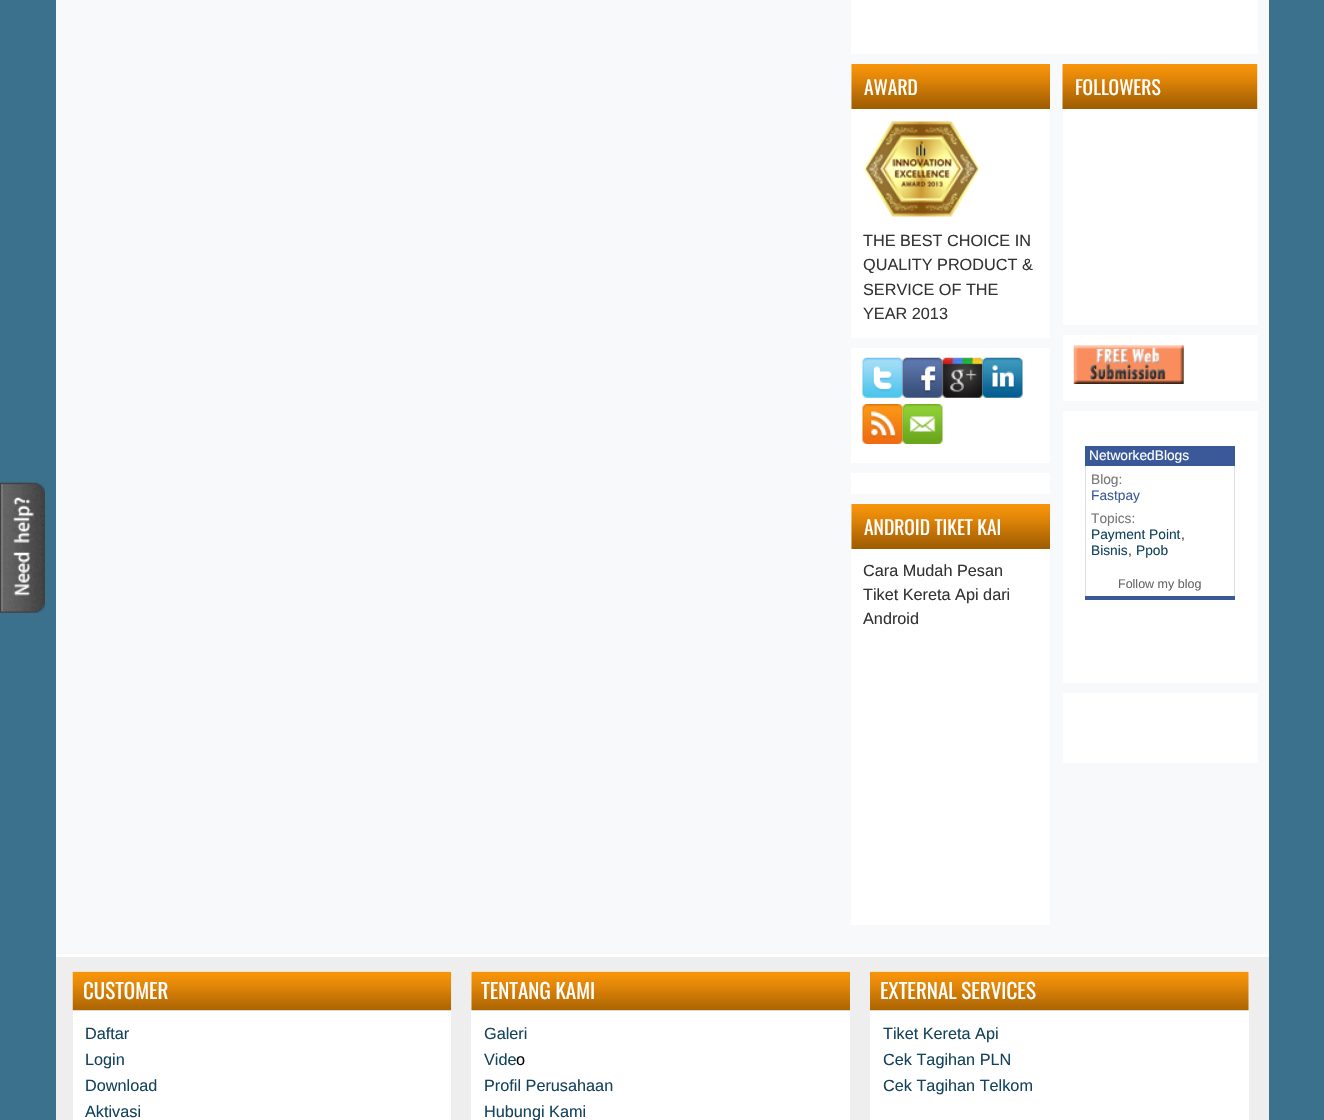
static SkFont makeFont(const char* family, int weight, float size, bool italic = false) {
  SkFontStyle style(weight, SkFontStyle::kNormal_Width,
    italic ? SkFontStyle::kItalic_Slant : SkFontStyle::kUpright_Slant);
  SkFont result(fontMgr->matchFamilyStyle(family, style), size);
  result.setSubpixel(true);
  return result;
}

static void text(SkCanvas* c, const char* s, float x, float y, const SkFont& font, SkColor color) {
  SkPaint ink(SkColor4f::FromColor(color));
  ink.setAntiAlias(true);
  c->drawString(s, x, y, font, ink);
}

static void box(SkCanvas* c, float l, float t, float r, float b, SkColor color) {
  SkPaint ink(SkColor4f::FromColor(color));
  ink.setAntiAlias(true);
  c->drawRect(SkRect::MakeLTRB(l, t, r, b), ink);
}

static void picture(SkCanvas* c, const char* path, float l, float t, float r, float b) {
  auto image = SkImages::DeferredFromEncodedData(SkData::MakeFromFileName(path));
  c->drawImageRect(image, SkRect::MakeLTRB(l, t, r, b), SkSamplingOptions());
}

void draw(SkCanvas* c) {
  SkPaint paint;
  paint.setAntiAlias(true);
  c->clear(0xff3c718e);
  picture(c, "img_01.png", 0, 482, 45, 613);
  box(c, 56, 0, 1269, 954, 0xfff8f9fa);
  box(c, 851, 0, 1258, 54, 0xffffffff);
  box(c, 851, 64, 1050, 338, 0xffffffff);
  picture(c, "img_02.png", 851, 64, 1050, 109);
  SkFont face1 = makeFont("Oswald", 400, 19.5f);
  text(c, "AWARD", 864, 95, face1, 0xffffffff);
  picture(c, "img_03.png", 862, 121, 980, 217);
  SkFont face2 = makeFont("Liberation Sans", 400, 16.25f);
  text(c, "THE BEST CHOICE IN", 863, 246, face2, 0xff333333);
  text(c, "QUALITY PRODUCT &", 863, 270, face2, 0xff333333);
  text(c, "SERVICE OF THE", 863, 295, face2, 0xff333333);
  text(c, "YEAR 2013", 863, 319, face2, 0xff333333);
  box(c, 851, 348, 1050, 463, 0xffffffff);
  picture(c, "img_04.png", 862, 357, 903, 398);
  picture(c, "img_05.png", 902, 357, 943, 398);
  picture(c, "img_06.png", 942, 357, 983, 398);
  picture(c, "img_07.png", 982, 357, 1023, 398);
  picture(c, "img_08.png", 862, 404, 903, 444);
  picture(c, "img_09.png", 902, 404, 943, 444);
  box(c, 851, 473, 1050, 494, 0xffffffff);
  box(c, 851, 504, 1050, 925, 0xffffffff);
  picture(c, "img_10.png", 851, 504, 1050, 549);
  text(c, "ANDROID TIKET KAI", 864, 535, face1, 0xffffffff);
  text(c, "Cara Mudah Pesan", 863, 576, face2, 0xff333333);
  text(c, "Tiket Kereta Api dari", 863, 600, face2, 0xff333333);
  text(c, "Android", 863, 624, face2, 0xff333333);
  box(c, 1063, 64, 1258, 325, 0xffffffff);
  picture(c, "img_11.png", 1062, 64, 1258, 109);
  text(c, "FOLLOWERS", 1075, 95, face1, 0xffffffff);
  box(c, 1063, 335, 1258, 401, 0xffffffff);
  picture(c, "img_12.png", 1073, 345, 1184, 384);
  box(c, 1063, 411, 1258, 683, 0xffffffff);
  box(c, 1085, 446, 1235, 600, 0xff3b5998);
  SkFont face3 = makeFont("Liberation Sans", 400, 13.75f);
  text(c, "NetworkedBlogs", 1089, 460, face3, 0xffffffff);
  box(c, 1086, 466, 1234, 596, 0xffffffff);
  box(c, 1234, 466, 1235, 596, 0xffd8dfea);
  box(c, 1085, 466, 1086, 596, 0xffd8dfea);
  text(c, "Blog:", 1091, 484, face3, 0xff777777);
  text(c, "Fastpay", 1091, 500, face3, 0xff3b5998);
  text(c, "Topics:", 1091, 523, face3, 0xff777777);
  text(c, "Payment Point", 1091, 539, face3, 0xff14435e);
  text(c, ",", 1181, 539, face3, 0xff444444);
  text(c, "Bisnis", 1091, 555, face3, 0xff14435e);
  text(c, ",", 1128, 555, face3, 0xff444444);
  text(c, "Ppob", 1136, 555, face3, 0xff14435e);
  SkFont face4 = makeFont("Liberation Sans", 400, 12.5f);
  text(c, "Follow my blog", 1118, 588, face4, 0xff666666);
  box(c, 1063, 693, 1258, 763, 0xffffffff);
  box(c, 56, 957, 1269, 1120, 0xffeeeeee);
  box(c, 56, 954, 1269, 957, 0xffffffff);
  box(c, 73, 971, 451, 1120, 0xffffffff);
  picture(c, "img_13.png", 72, 971, 452, 1011);
  SkFont face5 = makeFont("Oswald", 400, 21);
  text(c, "CUSTOMER", 83, 999, face5, 0xffffffff);
  text(c, "Daftar", 85, 1039, face2, 0xff14435e);
  text(c, "Login", 85, 1065, face2, 0xff14435e);
  text(c, "Download", 85, 1091, face2, 0xff14435e);
  text(c, "Aktivasi", 85, 1117, face2, 0xff14435e);
  box(c, 471, 971, 850, 1120, 0xffffffff);
  picture(c, "img_14.png", 471, 971, 850, 1011);
  text(c, "TENTANG KAMI", 481, 999, face5, 0xffffffff);
  text(c, "Galeri", 484, 1039, face2, 0xff14435e);
  text(c, "Vide", 484, 1065, face2, 0xff14435e);
  text(c, "o", 516, 1065, face2, 0xff000000);
  text(c, "Profil Perusahaan", 484, 1091, face2, 0xff14435e);
  text(c, "Hubungi Kami", 484, 1117, face2, 0xff14435e);
  box(c, 870, 971, 1249, 1120, 0xffffffff);
  picture(c, "img_15.png", 870, 971, 1249, 1011);
  text(c, "EXTERNAL SERVICES", 880, 999, face5, 0xffffffff);
  text(c, "Tiket Kereta Api", 883, 1039, face2, 0xff14435e);
  text(c, "Cek Tagihan PLN", 883, 1065, face2, 0xff14435e);
  text(c, "Cek Tagihan Telkom", 883, 1091, face2, 0xff14435e);
}
